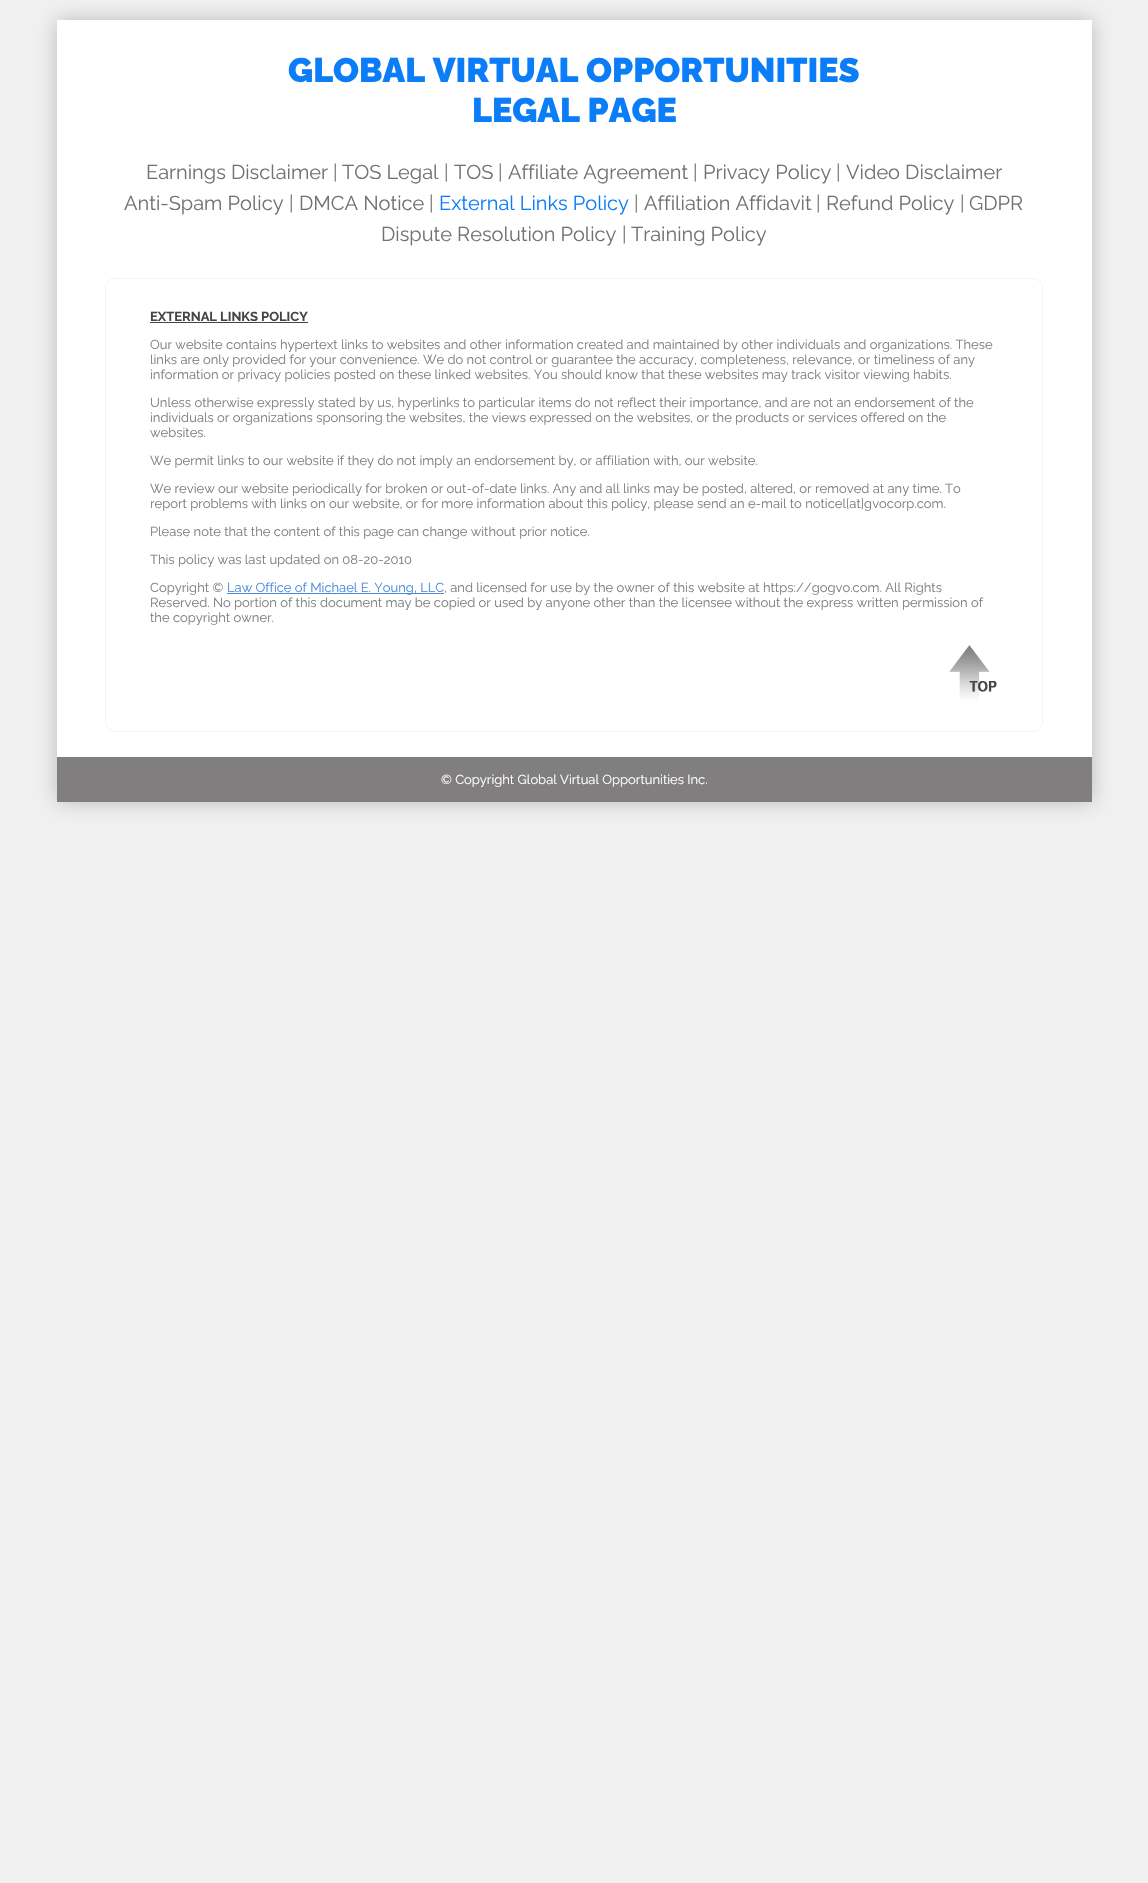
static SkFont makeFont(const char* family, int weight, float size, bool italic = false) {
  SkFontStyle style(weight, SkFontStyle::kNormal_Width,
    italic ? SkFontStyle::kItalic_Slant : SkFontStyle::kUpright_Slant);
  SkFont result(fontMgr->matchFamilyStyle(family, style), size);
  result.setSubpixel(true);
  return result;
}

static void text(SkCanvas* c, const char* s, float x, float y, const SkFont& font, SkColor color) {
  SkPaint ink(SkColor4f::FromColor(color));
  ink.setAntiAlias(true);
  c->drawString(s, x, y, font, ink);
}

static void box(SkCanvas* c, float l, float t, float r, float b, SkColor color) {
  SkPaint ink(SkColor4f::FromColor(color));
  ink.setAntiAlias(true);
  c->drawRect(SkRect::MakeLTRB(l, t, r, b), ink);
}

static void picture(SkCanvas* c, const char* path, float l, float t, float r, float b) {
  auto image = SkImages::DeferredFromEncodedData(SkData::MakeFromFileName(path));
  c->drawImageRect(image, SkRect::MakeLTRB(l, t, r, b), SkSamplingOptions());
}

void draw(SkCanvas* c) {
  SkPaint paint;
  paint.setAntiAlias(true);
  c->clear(0xfff1f1f1);
  paint.setColor(0xffbababa);
  paint.setMaskFilter(SkMaskFilter::MakeBlur(kNormal_SkBlurStyle, 10));
  c->drawRect(SkRect::MakeLTRB(57, 20, 1092, 802), paint);
  paint.setMaskFilter(nullptr);
  box(c, 57, 20, 1092, 757, 0xffffffff);
  SkFont face1 = makeFont("Raleway", 900, 34);
  text(c, "GLOBAL VIRTUAL OPPORTUNITIES", 288, 82, face1, 0xff0c7df8);
  text(c, "LEGAL PAGE", 472, 122, face1, 0xff0c7df8);
  SkFont face2 = makeFont("Raleway", 400, 20);
  text(c, "Earnings Disclaimer", 146, 179, face2, 0xff73726e);
  text(c, "|", 333, 179, face2, 0xff807e7e);
  text(c, "TOS Legal", 342, 179, face2, 0xff73726e);
  text(c, "|", 444, 179, face2, 0xff807e7e);
  text(c, "TOS", 454, 179, face2, 0xff73726e);
  text(c, "|", 498, 179, face2, 0xff807e7e);
  text(c, "Affiliate Agreement", 508, 179, face2, 0xff73726e);
  text(c, "|", 693, 179, face2, 0xff807e7e);
  text(c, "Privacy Policy", 703, 179, face2, 0xff73726e);
  text(c, "|", 836, 179, face2, 0xff807e7e);
  text(c, "Video Disclaimer", 846, 179, face2, 0xff73726e);
  text(c, "Anti-Spam Policy", 124, 210, face2, 0xff73726e);
  text(c, "|", 289, 210, face2, 0xff807e7e);
  text(c, "DMCA Notice", 299, 210, face2, 0xff73726e);
  text(c, "|", 429, 210, face2, 0xff807e7e);
  text(c, "External Links Policy", 439, 210, face2, 0xff0c7df8);
  text(c, "|", 634, 210, face2, 0xff807e7e);
  text(c, "Affiliation Affidavit", 644, 210, face2, 0xff73726e);
  text(c, "|", 816, 210, face2, 0xff807e7e);
  text(c, "Refund Policy", 826, 210, face2, 0xff73726e);
  text(c, "|", 960, 210, face2, 0xff807e7e);
  text(c, "GDPR", 969, 210, face2, 0xff73726e);
  text(c, "Dispute Resolution Policy", 381, 241, face2, 0xff73726e);
  text(c, "|", 622, 241, face2, 0xff807e7e);
  text(c, "Training Policy", 631, 241, face2, 0xff73726e);
  paint.setStyle(SkPaint::kStroke_Style);
  paint.setStrokeWidth(1);
  paint.setColor(0xfff4f4f4);
  c->drawRoundRect(SkRect::MakeLTRB(105.5f, 278.5f, 1042.5f, 731.5f), 9.5f, 9.5f, paint);
  SkFont face3 = makeFont("Raleway", 700, 13);
  text(c, "EXTERNAL LINKS POLICY", 150, 321, face3, 0xff444444);
  box(c, 150, 322, 308, 323, 0xff444444);
  SkFont face4 = makeFont("Raleway", 400, 13);
  text(c, "Our website contains hypertext links to websites and other information created and maintained by other individuals and organizations. These", 150, 349, face4, 0xff807e7e);
  text(c, "links are only provided for your convenience. We do not control or guarantee the accuracy, completeness, relevance, or timeliness of any", 150, 364, face4, 0xff807e7e);
  text(c, "information or privacy policies posted on these linked websites. You should know that these websites may track visitor viewing habits.", 150, 379, face4, 0xff807e7e);
  text(c, "Unless otherwise expressly stated by us, hyperlinks to particular items do not reflect their importance, and are not an endorsement of the", 150, 407, face4, 0xff807e7e);
  text(c, "individuals or organizations sponsoring the websites, the views expressed on the websites, or the products or services offered on the", 150, 422, face4, 0xff807e7e);
  text(c, "websites.", 150, 437, face4, 0xff807e7e);
  text(c, "We permit links to our website if they do not imply an endorsement by, or affiliation with, our website.", 150, 465, face4, 0xff807e7e);
  text(c, "We review our website periodically for broken or out-of-date links. Any and all links may be posted, altered, or removed at any time. To", 150, 493, face4, 0xff807e7e);
  text(c, "report problems with links on our website, or for more information about this policy, please send an e-mail to noticel[at]gvocorp.com.", 150, 508, face4, 0xff807e7e);
  text(c, "Please note that the content of this page can change without prior notice.", 150, 536, face4, 0xff807e7e);
  text(c, "This policy was last updated on 08-20-2010", 150, 564, face4, 0xff807e7e);
  text(c, "Copyright ©", 150, 592, face4, 0xff807e7e);
  box(c, 227, 593, 444, 594, 0xff4a8adb);
  text(c, "Law Office of Michael E. Young, LLC", 227, 592, face4, 0xff4a8adb);
  text(c, ", and licensed for use by the owner of this website at https://gogvo.com. All Rights", 444, 592, face4, 0xff807e7e);
  text(c, "Reserved. No portion of this document may be copied or used by anyone other than the licensee without the express written permission of", 150, 607, face4, 0xff807e7e);
  text(c, "the copyright owner.", 150, 622, face4, 0xff807e7e);
  picture(c, "img_01.png", 949, 645, 997, 700);
  box(c, 57, 757, 1092, 802, 0xff807e7e);
  text(c, "© Copyright Global Virtual Opportunities Inc.", 441, 784, face4, 0xffffffff);
}
